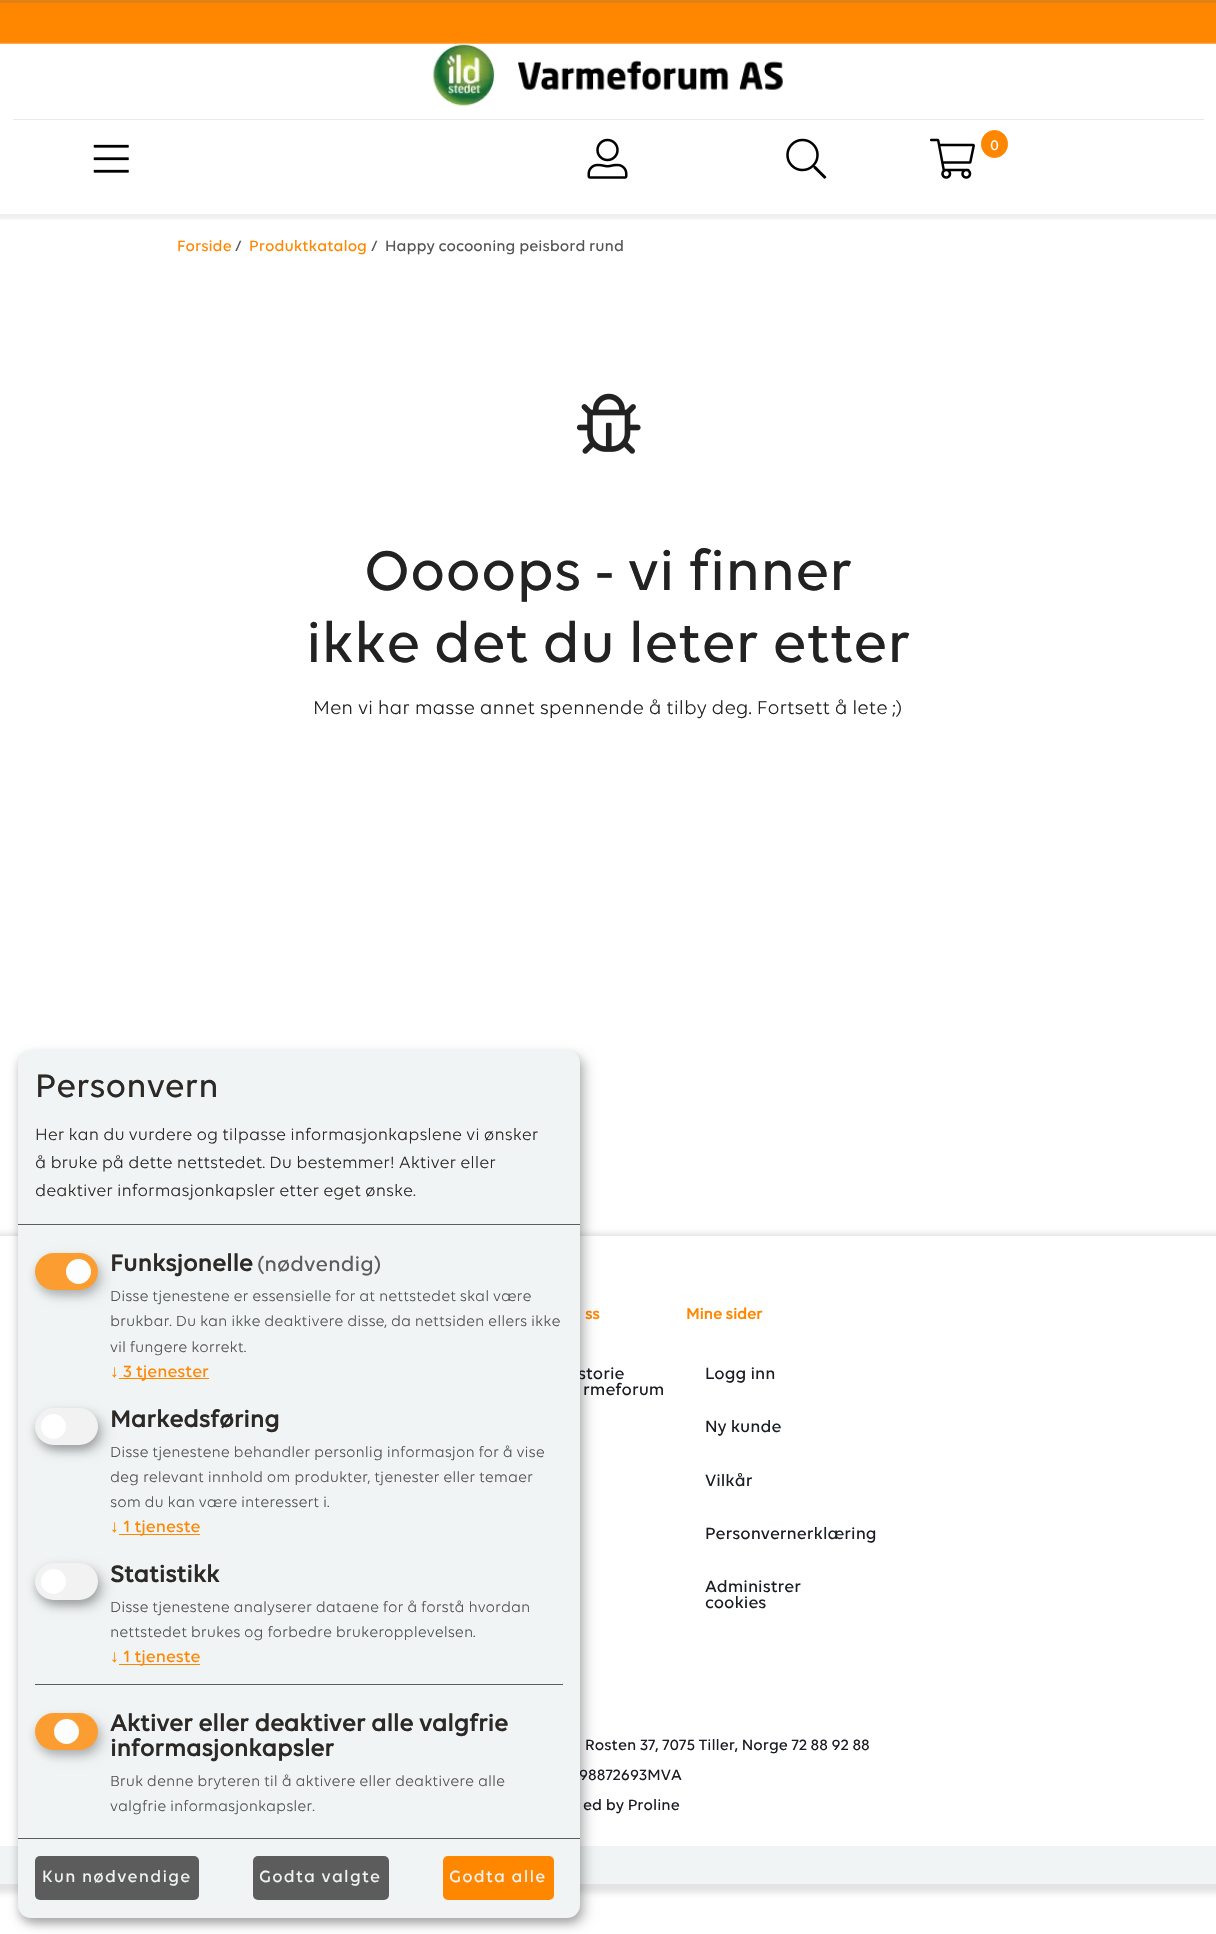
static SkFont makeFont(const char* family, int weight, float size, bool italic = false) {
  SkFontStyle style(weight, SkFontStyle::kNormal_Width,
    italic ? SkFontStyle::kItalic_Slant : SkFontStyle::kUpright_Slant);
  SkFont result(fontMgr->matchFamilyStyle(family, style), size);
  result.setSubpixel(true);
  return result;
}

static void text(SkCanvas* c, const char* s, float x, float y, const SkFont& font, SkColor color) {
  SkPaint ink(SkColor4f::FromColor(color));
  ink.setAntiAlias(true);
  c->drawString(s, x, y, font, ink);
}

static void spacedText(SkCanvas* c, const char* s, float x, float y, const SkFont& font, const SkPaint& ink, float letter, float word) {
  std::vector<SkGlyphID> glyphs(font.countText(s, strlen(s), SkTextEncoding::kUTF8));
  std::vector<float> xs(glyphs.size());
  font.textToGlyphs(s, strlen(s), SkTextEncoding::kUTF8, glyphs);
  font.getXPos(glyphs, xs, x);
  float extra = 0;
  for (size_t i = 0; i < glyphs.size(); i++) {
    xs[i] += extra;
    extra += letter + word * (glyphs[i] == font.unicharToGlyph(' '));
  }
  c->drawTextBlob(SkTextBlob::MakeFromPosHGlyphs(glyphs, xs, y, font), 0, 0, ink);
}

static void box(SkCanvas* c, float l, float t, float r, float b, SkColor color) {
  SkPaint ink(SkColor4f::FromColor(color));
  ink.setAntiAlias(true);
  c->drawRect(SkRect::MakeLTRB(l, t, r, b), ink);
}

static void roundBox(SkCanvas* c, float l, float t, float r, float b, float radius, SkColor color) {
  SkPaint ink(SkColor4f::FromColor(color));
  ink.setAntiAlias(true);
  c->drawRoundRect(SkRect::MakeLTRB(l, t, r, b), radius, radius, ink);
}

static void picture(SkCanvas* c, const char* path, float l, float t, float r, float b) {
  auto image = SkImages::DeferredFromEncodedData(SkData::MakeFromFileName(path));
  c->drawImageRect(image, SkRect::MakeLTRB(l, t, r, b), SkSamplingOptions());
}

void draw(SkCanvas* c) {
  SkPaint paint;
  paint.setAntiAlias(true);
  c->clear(0xffffffff);
  box(c, 0, 0, 1216, 44, 0xffff8700);
  paint.setColor(0x33646464);
  paint.setMaskFilter(SkMaskFilter::MakeBlur(kNormal_SkBlurStyle, 0.5f));
  c->drawRect(SkRect::MakeLTRB(0, 0, 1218, 3), paint);
  paint.setMaskFilter(nullptr);
  c->save();
  c->clipPath(SkPathBuilder(SkPathFillType::kEvenOdd).moveTo(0, 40).lineTo(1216, 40).lineTo(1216, 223).lineTo(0, 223).close().moveTo(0, 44).lineTo(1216, 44).lineTo(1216, 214).lineTo(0, 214).close().detach(), true);
  paint.setColor(0xfff0f0f0);
  paint.setMaskFilter(SkMaskFilter::MakeBlur(kNormal_SkBlurStyle, 1));
  c->drawRect(SkRect::MakeLTRB(-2, 44, 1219, 219), paint);
  paint.setMaskFilter(nullptr);
  c->restore();
  box(c, 0, 213, 1216, 214, 0xfaffffff);
  box(c, 13, 119, 1204, 120, 0xffe8e8e8);
  picture(c, "img_01.png", 432, 43, 783, 107);
  picture(c, "img_02.png", 93, 144, 129, 173);
  picture(c, "img_03.png", 587, 138, 628, 179);
  picture(c, "img_04.png", 786, 138, 827, 179);
  picture(c, "img_05.png", 930, 138, 975, 179);
  paint.setColor(0xffff8700);
  c->drawRoundRect(SkRect::MakeLTRB(981.5f, 130.5f, 1007.5f, 157.5f), 13, 13, paint);
  paint.setStyle(SkPaint::kStroke_Style);
  paint.setStrokeWidth(1);
  c->drawRoundRect(SkRect::MakeLTRB(981.5f, 130.5f, 1007.5f, 157.5f), 13, 13, paint);
  SkFont face1 = makeFont("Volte", 500, 15);
  text(c, "0", 990, 150, face1, 0xffffffff);
  SkFont face2 = makeFont("Volte", 500, 16);
  text(c, "Forside", 177, 251, face2, 0xffff8700);
  text(c, "/", 235, 251, face2, 0xff555555);
  text(c, "Produktkatalog", 249, 251, face2, 0xffff8700);
  text(c, "/  Happy cocooning peisbord rund", 371, 251, face2, 0xff555555);
  picture(c, "img_06.png", 576, 393, 641, 454);
  SkFont face3 = makeFont("Volte", 500, 60);
  text(c, "Oooops - vi finner", 364, 590, face3, 0xff222222);
  text(c, "ikke det du leter etter", 306, 662, face3, 0xff222222);
  SkFont face4 = makeFont("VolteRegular", 400, 20);
  text(c, "Men vi har masse annet spennende å tilby deg. Fortsett å lete ;)", 313, 714, face4, 0xff222222);
  paint.setStyle(SkPaint::kFill_Style);
  paint.setColor(0x80c8c8c8);
  paint.setMaskFilter(SkMaskFilter::MakeBlur(kNormal_SkBlurStyle, 3));
  c->drawRect(SkRect::MakeLTRB(-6, 1233, 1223, 1893), paint);
  paint.setMaskFilter(nullptr);
  box(c, 0, 1236, 1216, 1846, 0xffffffff);
  SkFont face5 = makeFont("Volte", 700, 16);
  text(c, "ss", 585, 1319, face5, 0xffff8700);
  SkFont face6 = makeFont("Volte", 500, 17.5f);
  text(c, "storie", 578, 1379, face6, 0xff1a1d24);
  text(c, "rmeforum", 583, 1395, face6, 0xff1a1d24);
  text(c, "Mine sider", 686, 1319, face5, 0xffff8700);
  text(c, "Logg inn", 705, 1379, face6, 0xff1a1d24);
  text(c, "Ny kunde", 705, 1432, face6, 0xff1a1d24);
  text(c, "Vilkår", 705, 1486, face6, 0xff1a1d24);
  text(c, "Personvernerklæring", 705, 1539, face6, 0xff1a1d24);
  text(c, "Administrer", 705, 1592, face6, 0xff1a1d24);
  text(c, "cookies", 705, 1608, face6, 0xff1a1d24);
  text(c, "Rosten 37, 7075 Tiller, Norge 72 88 92 88", 585, 1750, face2, 0xff1a1d24);
  text(c, "98872693MVA", 579, 1780, face2, 0xff1a1d24);
  text(c, "ed by Proline", 583, 1810, face2, 0xff1a1d24);
  box(c, 0, 1846, 1216, 1884, 0xfff0f4f5);
  paint.setColor(0x30000000);
  paint.setMaskFilter(SkMaskFilter::MakeBlur(kNormal_SkBlurStyle, 6));
  c->drawRoundRect(SkRect::MakeLTRB(24, 1056, 586, 1924), 13, 13, paint);
  paint.setMaskFilter(nullptr);
  paint.setColor(0x33000000);
  paint.setMaskFilter(SkMaskFilter::MakeBlur(kNormal_SkBlurStyle, 4));
  c->drawRoundRect(SkRect::MakeLTRB(18, 1055, 580, 1923), 13, 13, paint);
  paint.setMaskFilter(nullptr);
  roundBox(c, 18, 1050, 580, 1918, 13, 0xfff0f4f5);
  box(c, 18, 1224, 580, 1225, 0xff5c5c5c);
  SkFont face7 = makeFont("Volte", 500, 35);
  text(c, "Personvern", 35, 1097, face7, 0xff2c2926);
  SkFont face8 = makeFont("VolteRegular", 400, 17.5f);
  text(c, "Her kan du vurdere og tilpasse informasjonkapslene vi ønsker", 35, 1140, face8, 0xff2c2926);
  text(c, "å bruke på dette nettstedet. Du bestemmer! Aktiver eller", 35, 1168, face8, 0xff2c2926);
  text(c, "deaktiver informasjonkapsler etter eget ønske.", 35, 1196, face8, 0xff2c2926);
  paint.setColor(0x26000000);
  paint.setMaskFilter(SkMaskFilter::MakeBlur(kNormal_SkBlurStyle, 6));
  c->drawRoundRect(SkRect::MakeLTRB(41, 1259, 104, 1296), 18.5f, 18.5f, paint);
  paint.setMaskFilter(nullptr);
  paint.setColor(0x33303131);
  paint.setMaskFilter(SkMaskFilter::MakeBlur(kNormal_SkBlurStyle, 4));
  c->drawRoundRect(SkRect::MakeLTRB(35, 1258, 98, 1295), 18.5f, 18.5f, paint);
  paint.setMaskFilter(nullptr);
  roundBox(c, 35, 1253, 98, 1290, 18.5f, 0xfffc9d31);
  paint.setColor(0xfffcfdfd);
  c->drawCircle(78.5f, 1271.5f, 12.5f, paint);
  SkFont face9 = makeFont("Volte", 700, 24.75f);
  text(c, "Funksjonelle", 110, 1271, face9, 0xff2c2926);
  SkFont face10 = makeFont("Volte", 500, 22);
  text(c, "(nødvendig)", 257, 1271, face10, 0xff5c5c5c);
  SkFont face11 = makeFont("VolteRegular", 400, 15.75f);
  text(c, "Disse tjenestene er essensielle for at nettstedet skal være", 110, 1301, face11, 0xff555555);
  text(c, "brukbar. Du kan ikke deaktivere disse, da nettsiden ellers ikke", 110, 1326, face11, 0xff555555);
  text(c, "vil fungere korrekt.", 110, 1352, face11, 0xff555555);
  SkFont face12 = makeFont("Liberation Sans", 400, 17.5f);
  text(c, "↓", 110, 1377, face12, 0xffff8700);
  box(c, 119, 1378, 209, 1379, 0xffff8700);
  text(c, "3 tjenester", 123, 1377, face6, 0xffff8700);
  paint.setColor(0x30000000);
  paint.setMaskFilter(SkMaskFilter::MakeBlur(kNormal_SkBlurStyle, 6));
  c->drawRoundRect(SkRect::MakeLTRB(41, 1414, 104, 1451), 18.5f, 18.5f, paint);
  paint.setMaskFilter(nullptr);
  paint.setColor(0x33000000);
  paint.setMaskFilter(SkMaskFilter::MakeBlur(kNormal_SkBlurStyle, 4));
  c->drawRoundRect(SkRect::MakeLTRB(35, 1413, 98, 1450), 18.5f, 18.5f, paint);
  paint.setMaskFilter(nullptr);
  roundBox(c, 35, 1408, 98, 1445, 18.5f, 0xfff2f2f2);
  paint.setColor(0xffffffff);
  c->drawCircle(53.5f, 1426.5f, 12.5f, paint);
  text(c, "Markedsføring", 110, 1427, face9, 0xff2c2926);
  text(c, "Disse tjenestene behandler personlig informasjon for å vise", 110, 1457, face11, 0xff555555);
  text(c, "deg relevant innhold om produkter, tjenester eller temaer", 110, 1482, face11, 0xff555555);
  text(c, "som du kan være interessert i.", 110, 1507, face11, 0xff555555);
  text(c, "↓", 110, 1532, face12, 0xffff8700);
  box(c, 119, 1534, 200, 1535, 0xffff8700);
  text(c, "1 tjeneste", 123, 1532, face6, 0xffff8700);
  paint.setColor(0x30000000);
  paint.setMaskFilter(SkMaskFilter::MakeBlur(kNormal_SkBlurStyle, 6));
  c->drawRoundRect(SkRect::MakeLTRB(41, 1569, 104, 1606), 18.5f, 18.5f, paint);
  paint.setMaskFilter(nullptr);
  paint.setColor(0x33000000);
  paint.setMaskFilter(SkMaskFilter::MakeBlur(kNormal_SkBlurStyle, 4));
  c->drawRoundRect(SkRect::MakeLTRB(35, 1568, 98, 1605), 18.5f, 18.5f, paint);
  paint.setMaskFilter(nullptr);
  roundBox(c, 35, 1563, 98, 1600, 18.5f, 0xfff2f2f2);
  paint.setColor(0xffffffff);
  c->drawCircle(53.5f, 1581.5f, 12.5f, paint);
  text(c, "Statistikk", 110, 1582, face9, 0xff2c2926);
  text(c, "Disse tjenestene analyserer dataene for å forstå hvordan", 110, 1612, face11, 0xff555555);
  text(c, "nettstedet brukes og forbedre brukeropplevelsen.", 110, 1637, face11, 0xff555555);
  text(c, "↓", 110, 1662, face12, 0xffff8700);
  box(c, 119, 1664, 200, 1665, 0xffff8700);
  text(c, "1 tjeneste", 123, 1662, face6, 0xffff8700);
  box(c, 35, 1684, 563, 1685, 0xff5c5c5c);
  paint.setColor(0x26000000);
  paint.setMaskFilter(SkMaskFilter::MakeBlur(kNormal_SkBlurStyle, 6));
  c->drawRoundRect(SkRect::MakeLTRB(41, 1719, 104, 1756), 18.5f, 18.5f, paint);
  paint.setMaskFilter(nullptr);
  paint.setColor(0x33303131);
  paint.setMaskFilter(SkMaskFilter::MakeBlur(kNormal_SkBlurStyle, 4));
  c->drawRoundRect(SkRect::MakeLTRB(35, 1718, 98, 1755), 18.5f, 18.5f, paint);
  paint.setMaskFilter(nullptr);
  roundBox(c, 35, 1713, 98, 1750, 18.5f, 0xfffc9d31);
  paint.setColor(0xfffcfdfd);
  c->drawCircle(66.5f, 1731.5f, 12.5f, paint);
  text(c, "Aktiver eller deaktiver alle valgfrie", 110, 1731, face9, 0xff2c2926);
  text(c, "informasjonkapsler", 110, 1756, face9, 0xff2c2926);
  text(c, "Bruk denne bryteren til å aktivere eller deaktivere alle", 110, 1786, face11, 0xff555555);
  text(c, "valgfrie informasjonkapsler.", 110, 1811, face11, 0xff555555);
  box(c, 18, 1838, 580, 1839, 0xff5c5c5c);
  roundBox(c, 35, 1856, 199, 1900, 5, 0xff5c5c5c);
  paint.setColor(0xfff0f4f5);
  spacedText(c, "Kun nødvendige", 42, 1882, face6, paint, 1.25f, 0);
  roundBox(c, 253, 1856, 389, 1900, 5, 0xff5c5c5c);
  spacedText(c, "Godta valgte", 259, 1882, face6, paint, 1.25f, 0);
  roundBox(c, 443, 1856, 554, 1900, 5, 0xffff8700);
  spacedText(c, "Godta alle", 449, 1882, face6, paint, 1.25f, 0);
}
